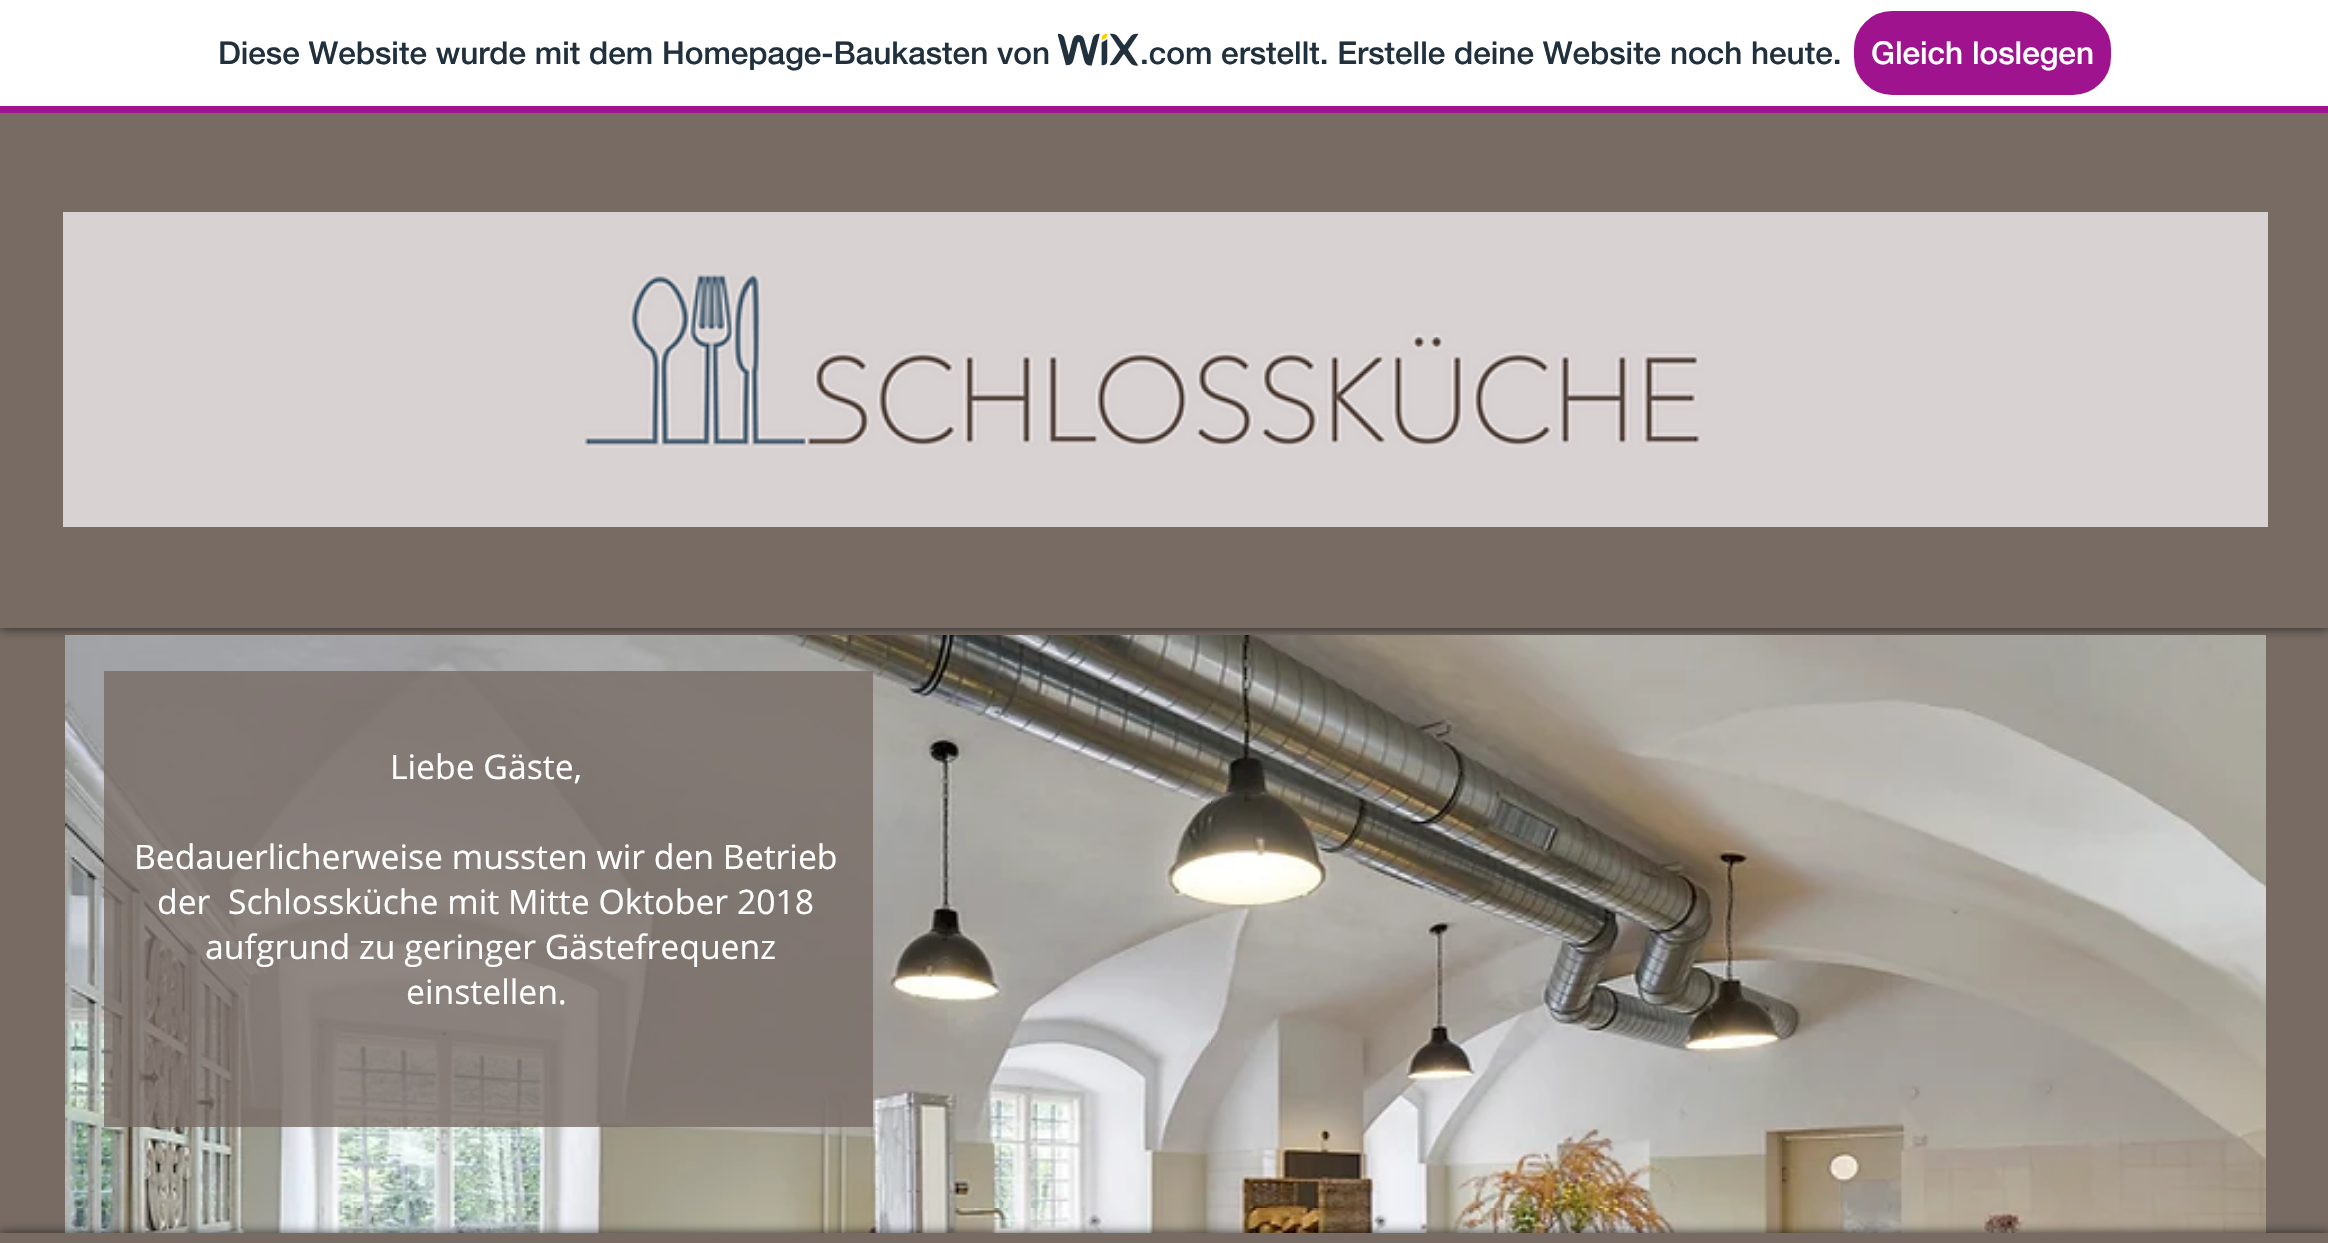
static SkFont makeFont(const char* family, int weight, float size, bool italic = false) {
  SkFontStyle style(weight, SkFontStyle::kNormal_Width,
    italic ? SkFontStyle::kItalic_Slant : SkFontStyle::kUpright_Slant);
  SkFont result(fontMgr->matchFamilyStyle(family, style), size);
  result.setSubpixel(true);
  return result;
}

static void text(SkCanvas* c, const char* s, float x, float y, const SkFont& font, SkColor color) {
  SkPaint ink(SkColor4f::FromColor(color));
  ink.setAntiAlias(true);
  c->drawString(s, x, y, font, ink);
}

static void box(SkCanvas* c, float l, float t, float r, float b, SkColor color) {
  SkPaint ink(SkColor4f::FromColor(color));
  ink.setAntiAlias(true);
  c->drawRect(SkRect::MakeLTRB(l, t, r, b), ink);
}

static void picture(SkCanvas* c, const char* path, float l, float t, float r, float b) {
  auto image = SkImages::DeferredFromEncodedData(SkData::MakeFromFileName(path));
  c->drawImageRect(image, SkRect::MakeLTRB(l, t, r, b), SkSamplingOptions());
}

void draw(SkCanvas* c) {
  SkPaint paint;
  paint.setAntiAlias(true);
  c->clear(0xff776b64);
  paint.setColor(0xb3000000);
  paint.setMaskFilter(SkMaskFilter::MakeBlur(kNormal_SkBlurStyle, 5.5f));
  c->drawRect(SkRect::MakeLTRB(0, 113, 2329, 628), paint);
  paint.setMaskFilter(nullptr);
  box(c, 0, 0, 2328, 106, 0xffffffff);
  box(c, 0, 106, 2328, 113, 0xffa0138e);
  SkFont face1 = makeFont("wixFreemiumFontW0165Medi", 500, 31.5f);
  text(c, "Diese Website wurde mit dem Homepage-Baukasten von", 218, 64, face1, 0xff20303c);
  picture(c, "img_01.png", 1058, 33, 1139, 66);
  text(c, ".com erstellt. Erstelle deine Website noch heute.", 1140, 64, face1, 0xff20303c);
  paint.setColor(0xffa0138e);
  c->drawRoundRect(SkRect::MakeLTRB(1855, 12, 2110, 94), 37, 37, paint);
  paint.setStyle(SkPaint::kStroke_Style);
  paint.setStrokeWidth(2);
  c->drawRoundRect(SkRect::MakeLTRB(1855, 12, 2110, 94), 37, 37, paint);
  text(c, "Gleich loslegen", 1871, 64, face1, 0xffffffff);
  box(c, 0, 113, 2328, 628, 0xff776b64);
  box(c, 63, 212, 2268, 527, 0xffd9d2d2);
  picture(c, "img_02.png", 583, 273, 1703, 448);
  picture(c, "img_03.png", 65, 635, 2266, 1233);
  box(c, 104, 671, 873, 1127, 0xc9776b64);
  SkFont face2 = makeFont("Open Sans", 400, 33.75f);
  text(c, "Liebe Gäste,", 390, 779, face2, 0xffffffff);
  text(c, "Bedauerlicherweise mussten wir den Betrieb", 134, 869, face2, 0xffffffff);
  text(c, "der  Schlossküche mit Mitte Oktober 2018", 157, 914, face2, 0xffffffff);
  text(c, "aufgrund zu geringer Gästefrequenz", 205, 959, face2, 0xffffffff);
  text(c, "einstellen.", 406, 1004, face2, 0xffffffff);
  paint.setStyle(SkPaint::kFill_Style);
  paint.setColor(0xb3000000);
  paint.setMaskFilter(SkMaskFilter::MakeBlur(kNormal_SkBlurStyle, 5.5f));
  c->drawRect(SkRect::MakeLTRB(0, 1233, 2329, 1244), paint);
  paint.setMaskFilter(nullptr);
  box(c, 0, 1233, 2328, 1243, 0xff776b64);
}
